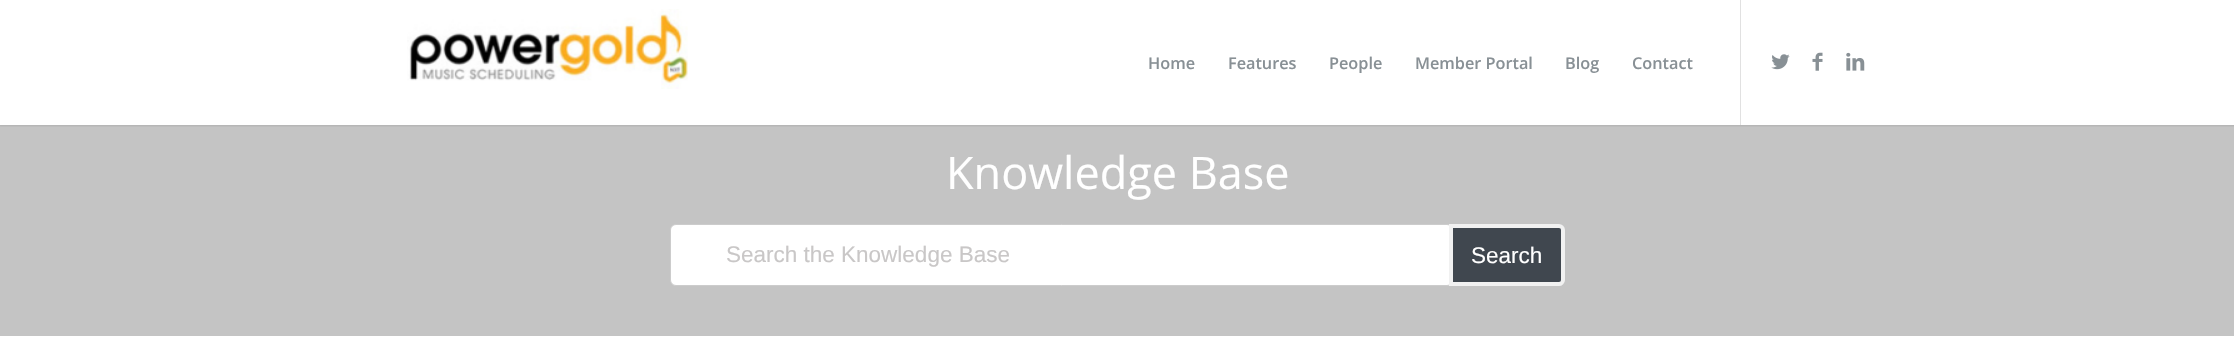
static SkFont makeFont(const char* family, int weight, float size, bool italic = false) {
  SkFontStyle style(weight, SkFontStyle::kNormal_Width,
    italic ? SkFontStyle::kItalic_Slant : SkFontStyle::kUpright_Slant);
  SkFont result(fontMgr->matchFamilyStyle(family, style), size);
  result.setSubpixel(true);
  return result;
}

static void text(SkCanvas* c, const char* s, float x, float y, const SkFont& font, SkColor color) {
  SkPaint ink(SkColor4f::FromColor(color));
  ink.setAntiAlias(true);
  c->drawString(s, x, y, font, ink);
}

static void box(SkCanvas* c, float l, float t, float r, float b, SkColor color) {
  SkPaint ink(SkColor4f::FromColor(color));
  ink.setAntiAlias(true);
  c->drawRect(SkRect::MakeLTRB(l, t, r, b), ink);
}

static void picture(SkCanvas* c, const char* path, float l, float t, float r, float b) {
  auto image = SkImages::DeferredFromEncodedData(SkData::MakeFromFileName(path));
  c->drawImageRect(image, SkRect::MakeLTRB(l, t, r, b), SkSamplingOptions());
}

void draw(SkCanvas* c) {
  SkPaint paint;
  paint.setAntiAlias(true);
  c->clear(0xffffffff);
  box(c, 0, 125, 2234, 336, 0xffc4c4c4);
  c->save();
  c->clipRect(SkRect::MakeLTRB(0, 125, 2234, 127));
  paint.setColor(0x1a000000);
  paint.setMaskFilter(SkMaskFilter::MakeBlur(kNormal_SkBlurStyle, 1));
  c->drawRect(SkRect::MakeLTRB(-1, -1, 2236, 126), paint);
  paint.setMaskFilter(nullptr);
  c->restore();
  picture(c, "img_01.png", 407, 9, 688, 89);
  box(c, 1740, 0, 1741, 125, 0xffe1e1e1);
  SkFont face1 = makeFont("Open Sans", 600, 16.25f);
  text(c, "Home", 1148, 69, face1, 0xff889095);
  text(c, "Features", 1228, 69, face1, 0xff889095);
  text(c, "People", 1329, 69, face1, 0xff889095);
  text(c, "Member Portal", 1415, 69, face1, 0xff889095);
  text(c, "Blog", 1565, 69, face1, 0xff889095);
  text(c, "Contact", 1632, 69, face1, 0xff889095);
  picture(c, "img_02.png", 1771, 54, 1790, 70);
  picture(c, "img_03.png", 1812, 52, 1823, 71);
  picture(c, "img_04.png", 1846, 52, 1865, 71);
  SkFont face2 = makeFont("Open Sans", 400, 45);
  text(c, "Knowledge Base", 946, 189, face2, 0xffffffff);
  paint.setColor(0xffffffff);
  c->drawRoundRect(SkRect::MakeLTRB(670.5f, 224.5f, 1452.5f, 285.5f), 5.5f, 5.5f, paint);
  paint.setStyle(SkPaint::kStroke_Style);
  paint.setStrokeWidth(1);
  paint.setColor(0xffcccccc);
  c->drawRoundRect(SkRect::MakeLTRB(670.5f, 224.5f, 1452.5f, 285.5f), 5.5f, 5.5f, paint);
  SkFont face3 = makeFont("Liberation Sans", 400, 22.5f);
  text(c, "Search the Knowledge Base", 726, 262, face3, 0xffc9c7c7);
  paint.setStyle(SkPaint::kFill_Style);
  paint.setColor(0xff40474f);
  c->drawPath(SkPathBuilder().moveTo(1451, 226).lineTo(1559, 226).cubicTo(1561, 226, 1563, 228, 1563, 230).lineTo(1563, 280).cubicTo(1563, 282, 1561, 284, 1559, 284).lineTo(1451, 284).close().detach(), paint);
  paint.setStyle(SkPaint::kStroke_Style);
  paint.setStrokeWidth(4);
  paint.setColor(0xfff1f1f1);
  c->drawPath(SkPathBuilder().moveTo(1451, 226).lineTo(1559, 226).cubicTo(1561, 226, 1563, 228, 1563, 230).lineTo(1563, 280).cubicTo(1563, 282, 1561, 284, 1559, 284).lineTo(1451, 284).close().detach(), paint);
  text(c, "Search", 1471, 263, face3, 0xffffffff);
}
